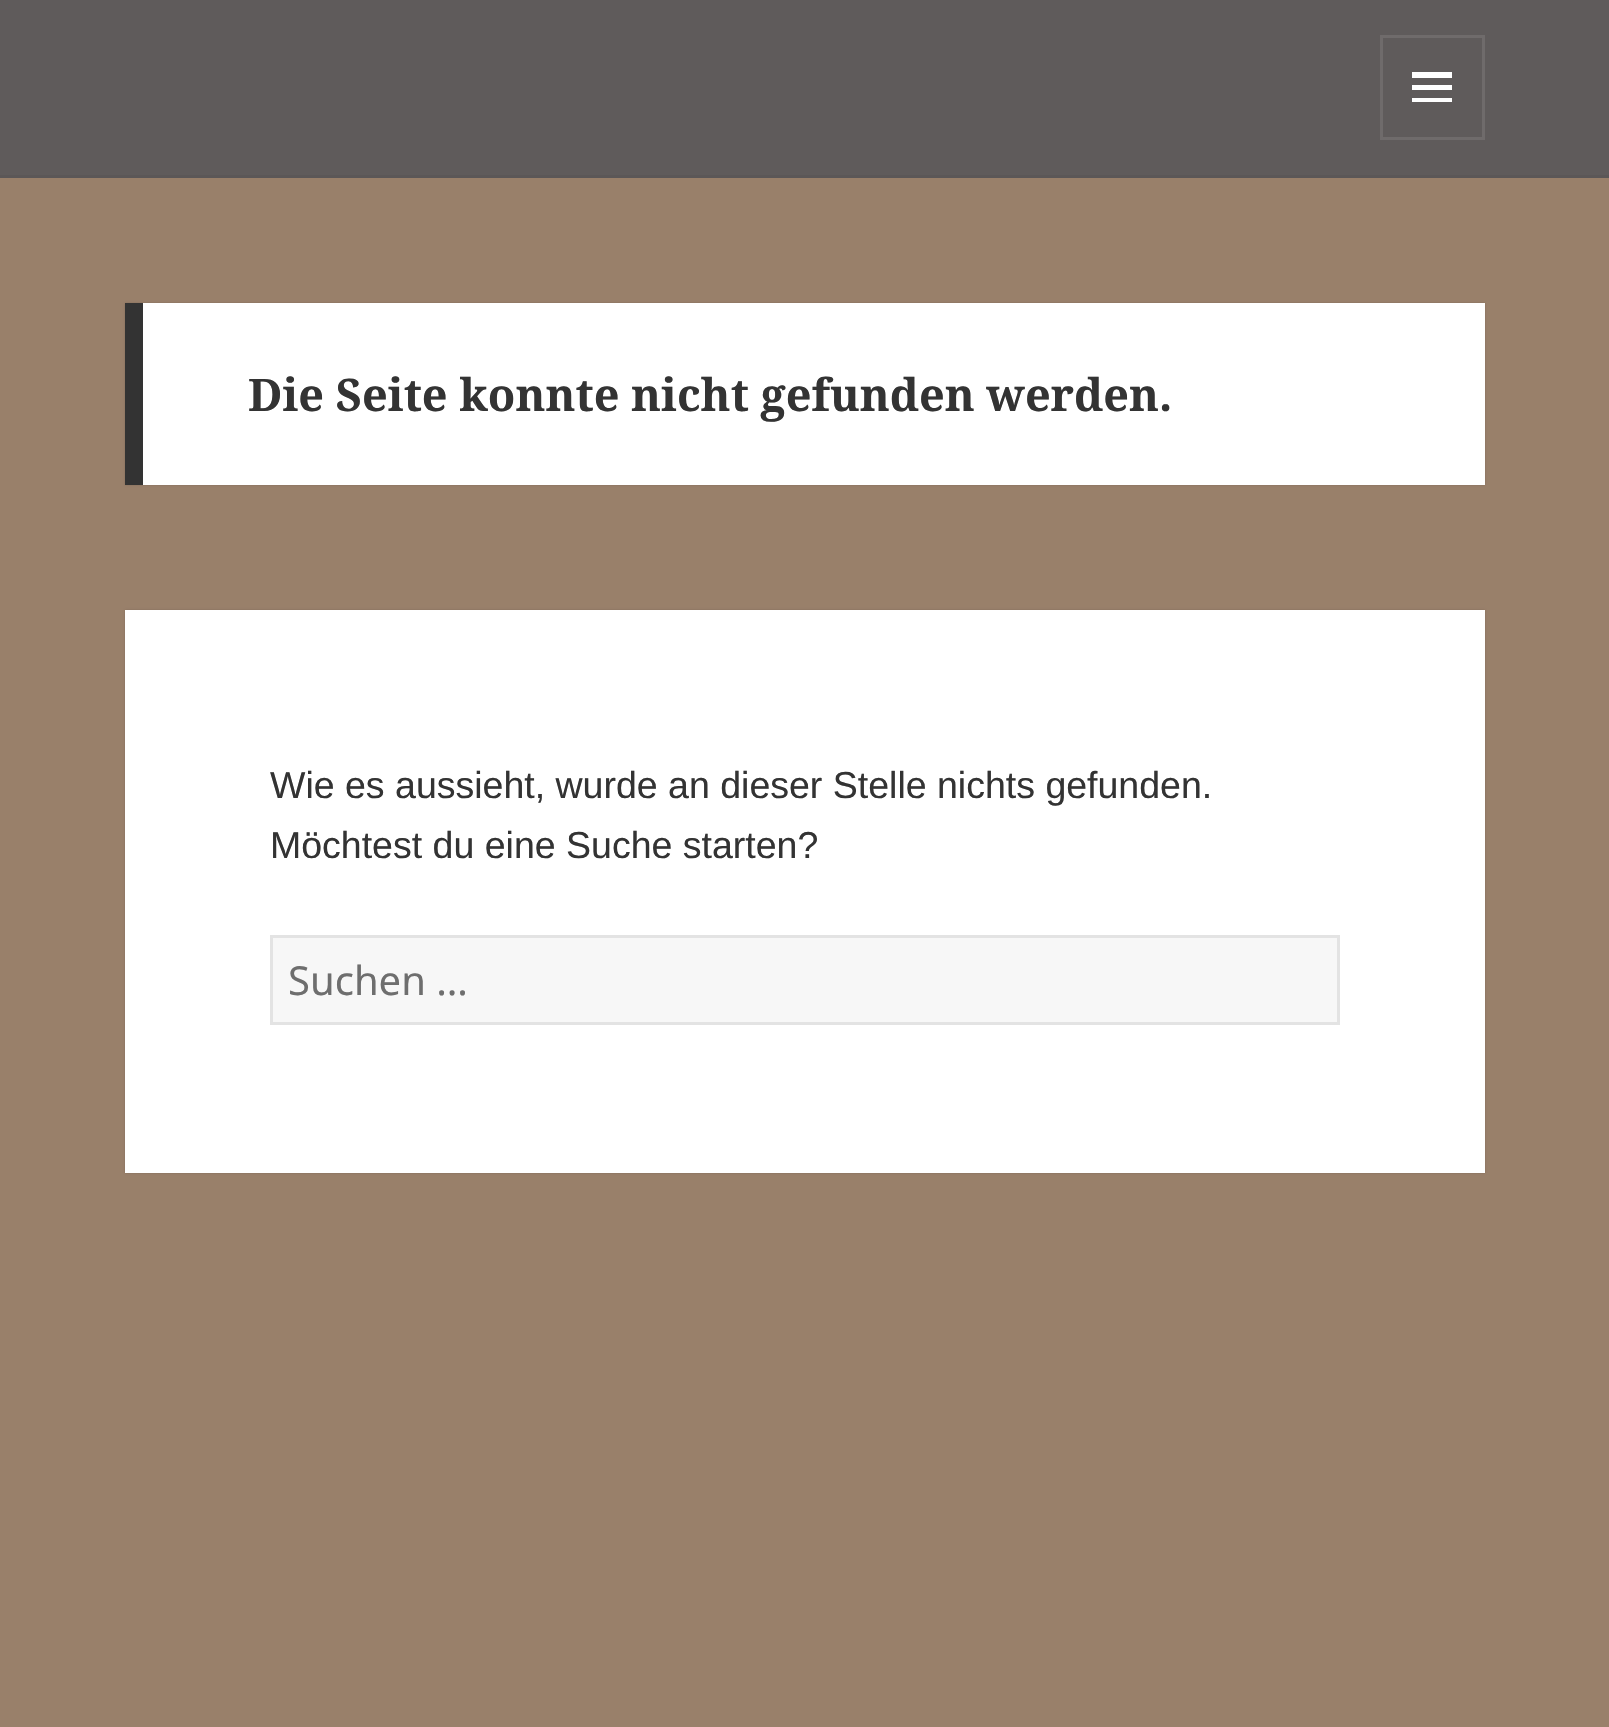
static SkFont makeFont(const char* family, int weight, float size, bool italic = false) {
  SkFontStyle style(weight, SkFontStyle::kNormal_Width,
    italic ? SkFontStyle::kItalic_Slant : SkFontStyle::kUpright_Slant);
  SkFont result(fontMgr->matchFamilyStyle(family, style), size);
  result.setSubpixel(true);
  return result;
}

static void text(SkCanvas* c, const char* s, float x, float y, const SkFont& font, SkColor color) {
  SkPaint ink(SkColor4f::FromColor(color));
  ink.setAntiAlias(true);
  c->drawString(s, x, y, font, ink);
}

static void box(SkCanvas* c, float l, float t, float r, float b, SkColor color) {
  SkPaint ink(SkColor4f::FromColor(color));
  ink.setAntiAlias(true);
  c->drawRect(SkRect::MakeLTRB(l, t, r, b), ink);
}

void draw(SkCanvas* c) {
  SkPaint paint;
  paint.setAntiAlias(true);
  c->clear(0xff99806a);
  box(c, 0, 0, 1609, 175, 0xff5f5b5b);
  box(c, 0, 175, 1609, 178, 0xff5b5757);
  paint.setStyle(SkPaint::kStroke_Style);
  paint.setStrokeWidth(3);
  paint.setColor(0xff6f6b6b);
  c->drawRect(SkRect::MakeLTRB(1381.5f, 36.5f, 1483.5f, 138.5f), paint);
  paint.setStyle(SkPaint::kFill_Style);
  paint.setColor(0xffffffff);
  c->drawPath(SkPathBuilder().moveTo(1412, 102).lineTo(1412, 98).lineTo(1452, 98).lineTo(1452, 102).close().moveTo(1412, 72).lineTo(1452, 72).lineTo(1452, 78).lineTo(1412, 78).close().moveTo(1412, 90).lineTo(1412, 85).lineTo(1452, 85).lineTo(1452, 90).close().detach(), paint);
  paint.setColor(0x26000000);
  paint.setMaskFilter(SkMaskFilter::MakeBlur(kNormal_SkBlurStyle, 1));
  c->drawRect(SkRect::MakeLTRB(125, 303, 1485, 485), paint);
  paint.setMaskFilter(nullptr);
  box(c, 143, 303, 1485, 485, 0xffffffff);
  box(c, 125, 303, 143, 485, 0xff333333);
  SkFont face1 = makeFont("Noto Serif", 700, 45);
  text(c, "Die Seite konnte nicht gefunden werden.", 248, 411, face1, 0xff333333);
  paint.setMaskFilter(SkMaskFilter::MakeBlur(kNormal_SkBlurStyle, 1));
  c->drawRect(SkRect::MakeLTRB(125, 610, 1485, 1173), paint);
  paint.setMaskFilter(nullptr);
  box(c, 125, 610, 1485, 1173, 0xffffffff);
  SkFont face2 = makeFont("Liberation Sans", 400, 37.5f);
  text(c, "Wie es aussieht, wurde an dieser Stelle nichts gefunden.", 270, 798, face2, 0xff333333);
  text(c, "Möchtest du eine Suche starten?", 270, 858, face2, 0xff333333);
  paint.setColor(0xfff7f7f7);
  c->drawRect(SkRect::MakeLTRB(271.5f, 936.5f, 1338.5f, 1023.5f), paint);
  paint.setStyle(SkPaint::kStroke_Style);
  paint.setColor(0xffe3e3e3);
  c->drawRect(SkRect::MakeLTRB(271.5f, 936.5f, 1338.5f, 1023.5f), paint);
  SkFont face3 = makeFont("Noto Sans", 400, 40);
  text(c, "Suchen …", 288, 995, face3, 0xff6e6e6e);
}
